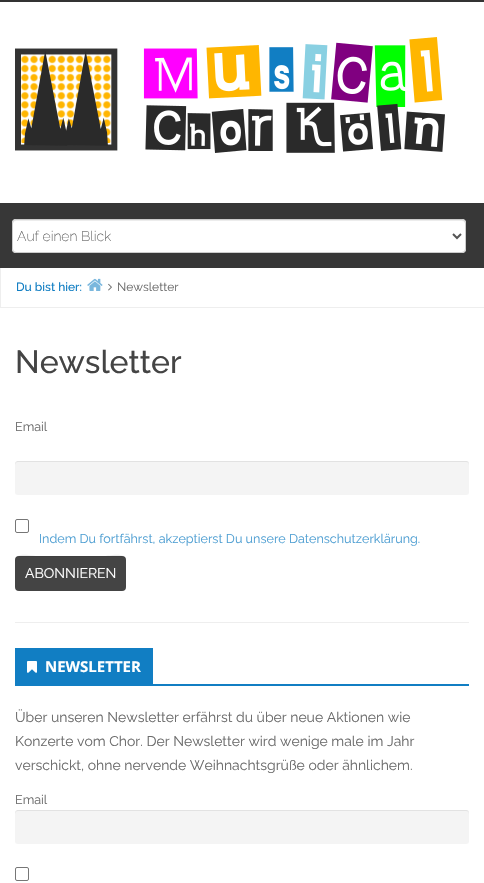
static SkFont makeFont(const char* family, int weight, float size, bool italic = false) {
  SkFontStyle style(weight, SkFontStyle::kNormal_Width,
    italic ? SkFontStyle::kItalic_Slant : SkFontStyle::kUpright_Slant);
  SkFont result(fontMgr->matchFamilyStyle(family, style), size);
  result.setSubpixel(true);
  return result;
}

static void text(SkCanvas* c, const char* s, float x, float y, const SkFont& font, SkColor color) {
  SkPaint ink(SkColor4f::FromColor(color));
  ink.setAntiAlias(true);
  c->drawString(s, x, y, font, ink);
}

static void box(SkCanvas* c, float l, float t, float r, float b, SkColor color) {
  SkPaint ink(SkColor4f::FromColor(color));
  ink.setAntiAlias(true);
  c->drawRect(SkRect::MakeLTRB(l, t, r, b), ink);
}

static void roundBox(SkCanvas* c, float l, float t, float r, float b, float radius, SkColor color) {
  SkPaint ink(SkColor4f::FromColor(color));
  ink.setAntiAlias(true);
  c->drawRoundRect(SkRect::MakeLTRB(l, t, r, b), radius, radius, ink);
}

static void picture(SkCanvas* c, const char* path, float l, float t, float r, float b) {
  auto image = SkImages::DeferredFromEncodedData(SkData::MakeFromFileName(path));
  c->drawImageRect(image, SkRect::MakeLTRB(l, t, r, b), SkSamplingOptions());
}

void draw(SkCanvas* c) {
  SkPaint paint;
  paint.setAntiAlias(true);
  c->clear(0xffffffff);
  box(c, 0, 0, 484, 2, 0xff333333);
  picture(c, "img_01.png", 15, 37, 445, 153);
  box(c, 0, 203, 484, 268, 0xff373737);
  roundBox(c, 12, 219, 466, 253, 4, 0xffffffff);
  paint.setColor(0xffececec);
  c->drawPath(SkPathBuilder().moveTo(16, 221).lineTo(462, 221).cubicTo(464, 221, 465, 222, 465, 224).cubicTo(465, 222, 465, 221, 463, 220).lineTo(15, 220).lineTo(13, 222).lineTo(13, 224).cubicTo(13, 222, 14, 221, 16, 221).close().detach(), paint);
  paint.setStyle(SkPaint::kStroke_Style);
  paint.setStrokeWidth(1);
  paint.setColor(0xffcccccc);
  c->drawRoundRect(SkRect::MakeLTRB(12.5f, 219.5f, 465.5f, 252.5f), 3.5f, 3.5f, paint);
  paint.setStrokeWidth(2);
  paint.setColor(0xff555555);
  c->drawPath(SkPathBuilder().moveTo(453, 234).lineTo(457, 238).lineTo(461, 234).detach(), paint);
  SkFont face1 = makeFont("Raleway", 200, 14);
  text(c, "Auf einen Blick", 17, 241, face1, 0xff555555);
  box(c, 0, 307, 484, 308, 0xffeeeeee);
  box(c, 0, 268, 1, 308, 0xffeeeeee);
  SkFont face2 = makeFont("Raleway", 500, 12);
  text(c, "Du bist hier:", 16, 291, face2, 0xff117ec3);
  picture(c, "img_02.png", 87, 278, 103, 291);
  picture(c, "img_03.png", 108, 283, 112, 291);
  SkFont face3 = makeFont("Raleway", 400, 12);
  text(c, "Newsletter", 117, 291, face3, 0xff6b6b6b);
  box(c, 15, 622, 469, 623, 0xffeeeeee);
  SkFont face4 = makeFont("Raleway", 500, 32);
  text(c, "Newsletter", 15, 373, face4, 0xff444444);
  SkFont face5 = makeFont("Raleway", 400, 12.6f);
  text(c, "Email", 15, 431, face5, 0xff6b6b6b);
  roundBox(c, 15, 461, 469, 495, 3, 0xfff4f4f4);
  paint.setStyle(SkPaint::kFill_Style);
  paint.setColor(0x12000000);
  c->drawPath(SkPathBuilder().moveTo(18, 462).lineTo(466, 462).cubicTo(468, 462, 469, 463, 469, 465).cubicTo(469, 463, 469, 462, 467, 461).lineTo(17, 461).lineTo(15, 463).lineTo(15, 465).cubicTo(15, 463, 16, 462, 18, 462).close().detach(), paint);
  paint.setStyle(SkPaint::kStroke_Style);
  paint.setStrokeWidth(1);
  paint.setColor(0xff767676);
  c->drawRoundRect(SkRect::MakeLTRB(15.5f, 519.5f, 28.5f, 532.5f), 1.5f, 1.5f, paint);
  text(c, "Indem Du fortfährst, akzeptierst Du unsere Datenschutzerklärung.", 39, 543, face5, 0xff4d9ed2);
  roundBox(c, 15, 556, 126, 591, 4, 0xff444444);
  paint.setStyle(SkPaint::kFill_Style);
  paint.setColor(0x12000000);
  c->drawPath(SkPathBuilder().moveTo(19, 557).lineTo(122, 557).cubicTo(124, 557, 126, 559, 126, 561).cubicTo(126, 551, 108, 556, 105, 556).lineTo(36, 556).cubicTo(33, 556, 15, 551, 15, 561).cubicTo(15, 559, 17, 557, 19, 557).close().detach(), paint);
  SkFont face6 = makeFont("Raleway", 400, 14);
  text(c, "ABONNIEREN", 25, 578, face6, 0xffffffff);
  box(c, 15, 684, 469, 686, 0xff117ec3);
  box(c, 15, 648, 153, 684, 0xff117ec3);
  picture(c, "img_04.png", 27, 661, 37, 673);
  SkFont face7 = makeFont("Open Sans", 700, 15);
  text(c, "NEWSLETTER", 45, 672, face7, 0xffffffff);
  text(c, "Über unseren Newsletter erfährst du über neue Aktionen wie", 15, 722, face6, 0xff6b6b6b);
  text(c, "Konzerte vom Chor. Der Newsletter wird wenige male im Jahr", 15, 746, face6, 0xff6b6b6b);
  text(c, "verschickt, ohne nervende Weihnachtsgrüße oder ähnlichem.", 15, 770, face6, 0xff6b6b6b);
  text(c, "Email", 15, 804, face5, 0xff6b6b6b);
  roundBox(c, 15, 810, 469, 844, 3, 0xfff4f4f4);
  c->drawPath(SkPathBuilder().moveTo(18, 811).lineTo(466, 811).cubicTo(468, 811, 469, 812, 469, 814).cubicTo(469, 812, 469, 811, 467, 810).lineTo(17, 810).lineTo(15, 812).lineTo(15, 814).cubicTo(15, 812, 16, 811, 18, 811).close().detach(), paint);
  paint.setStyle(SkPaint::kStroke_Style);
  paint.setColor(0xff767676);
  c->drawRoundRect(SkRect::MakeLTRB(15.5f, 867.5f, 28.5f, 880.5f), 1.5f, 1.5f, paint);
}
